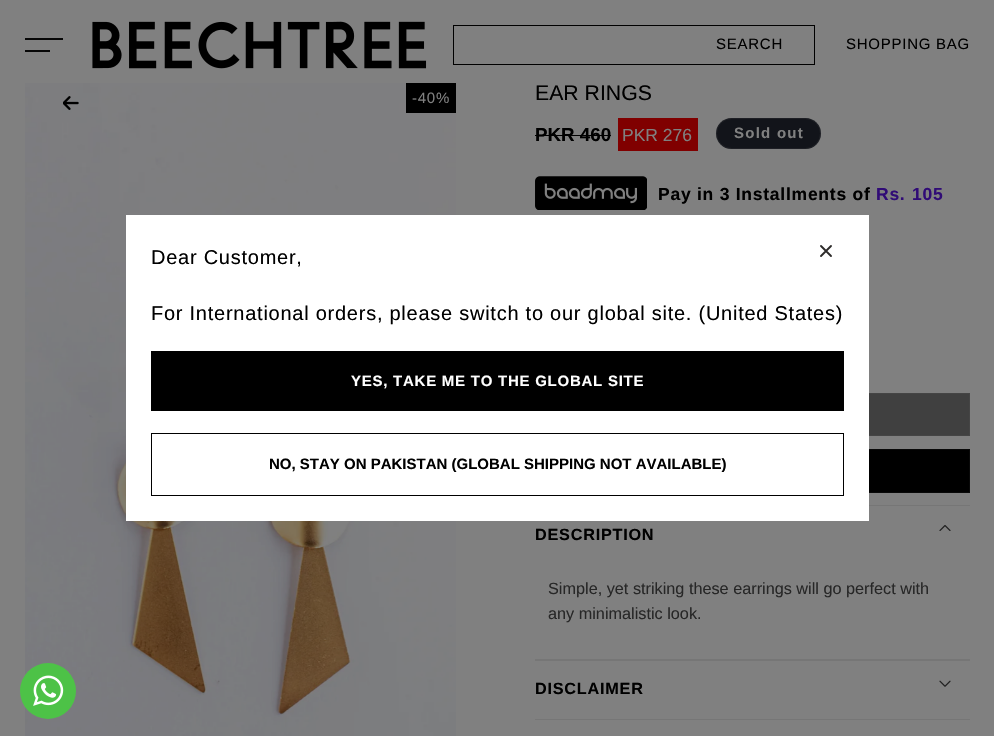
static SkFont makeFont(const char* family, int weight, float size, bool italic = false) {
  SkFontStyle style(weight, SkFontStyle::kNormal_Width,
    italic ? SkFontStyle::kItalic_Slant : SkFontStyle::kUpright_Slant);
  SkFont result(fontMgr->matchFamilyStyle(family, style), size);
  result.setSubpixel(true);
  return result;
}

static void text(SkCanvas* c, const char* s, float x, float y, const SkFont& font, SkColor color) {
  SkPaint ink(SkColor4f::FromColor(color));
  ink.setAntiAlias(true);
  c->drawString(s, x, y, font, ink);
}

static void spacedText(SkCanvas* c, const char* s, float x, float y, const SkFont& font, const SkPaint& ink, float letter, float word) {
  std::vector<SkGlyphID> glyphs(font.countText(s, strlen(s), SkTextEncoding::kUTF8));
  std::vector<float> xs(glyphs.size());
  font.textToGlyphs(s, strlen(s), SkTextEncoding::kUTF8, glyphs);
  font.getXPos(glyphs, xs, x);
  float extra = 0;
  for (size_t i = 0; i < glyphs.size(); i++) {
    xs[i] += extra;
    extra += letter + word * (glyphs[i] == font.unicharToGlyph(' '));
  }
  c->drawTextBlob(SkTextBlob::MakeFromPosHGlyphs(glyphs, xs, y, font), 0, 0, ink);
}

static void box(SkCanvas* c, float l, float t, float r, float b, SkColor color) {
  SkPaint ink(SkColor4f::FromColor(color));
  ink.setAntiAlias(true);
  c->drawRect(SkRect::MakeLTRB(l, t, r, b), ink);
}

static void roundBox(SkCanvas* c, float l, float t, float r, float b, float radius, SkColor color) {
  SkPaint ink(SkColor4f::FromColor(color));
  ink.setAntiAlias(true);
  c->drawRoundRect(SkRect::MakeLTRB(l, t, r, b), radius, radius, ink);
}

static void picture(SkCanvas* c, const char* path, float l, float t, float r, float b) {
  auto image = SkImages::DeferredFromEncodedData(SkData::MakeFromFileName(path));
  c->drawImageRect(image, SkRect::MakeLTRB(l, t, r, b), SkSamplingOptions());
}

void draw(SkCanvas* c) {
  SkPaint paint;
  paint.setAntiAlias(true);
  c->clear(0xff808080);
  box(c, 25, 38, 63, 40, 0xff070707);
  box(c, 25, 50, 50, 52, 0xff070707);
  picture(c, "img_01.png", 92, 21, 427, 69);
  paint.setStyle(SkPaint::kStroke_Style);
  paint.setStrokeWidth(1);
  paint.setColor(0xff000000);
  c->drawRect(SkRect::MakeLTRB(453.5f, 25.5f, 814.5f, 64.5f), paint);
  SkFont face1 = makeFont("Liberation Sans", 400, 15);
  paint.setStyle(SkPaint::kFill_Style);
  spacedText(c, "SEARCH", 716, 49, face1, paint, 0.75f, 0);
  spacedText(c, "SHOPPING BAG", 846, 49, face1, paint, 0.75f, 0);
  picture(c, "img_03.png", 25, 83, 456, 736);
  picture(c, "img_02.png", 63, 96, 79, 110);
  box(c, 406, 83, 456, 113, 0xff000000);
  paint.setColor(0xff808080);
  spacedText(c, "-40%", 412, 103, face1, paint, 0.75f, 0);
  SkFont face2 = makeFont("Liberation Sans", 400, 21.25f);
  text(c, "EAR RINGS", 535, 100, face2, 0xff000000);
  SkFont face3 = makeFont("Liberation Sans", 700, 18.75f);
  text(c, "PKR 460", 535, 141, face3, 0xff000000);
  box(c, 535, 135, 611, 136, 0xff000000);
  box(c, 618, 118, 698, 151, 0xff800000);
  SkFont face4 = makeFont("Liberation Sans", 400, 17.5f);
  text(c, "PKR 276", 622, 141, face4, 0xff808080);
  roundBox(c, 716, 118, 821, 149, 15.5f, 0xff12141a);
  paint.setStyle(SkPaint::kStroke_Style);
  paint.setColor(0x1a808080);
  c->drawRoundRect(SkRect::MakeLTRB(716.5f, 118.5f, 820.5f, 148.5f), 15, 15, paint);
  SkFont face5 = makeFont("Liberation Sans", 700, 15);
  paint.setStyle(SkPaint::kFill_Style);
  paint.setColor(0xff808080);
  spacedText(c, "Sold out", 734, 138, face5, paint, 1.25f, 0);
  picture(c, "img_04.png", 535, 176, 647, 210);
  SkFont face6 = makeFont("Liberation Sans", 700, 17.5f);
  paint.setColor(0xff000000);
  spacedText(c, "Pay in 3 Installments of", 658, 200, face6, paint, 0.75f, 0);
  paint.setColor(0xff300b76);
  spacedText(c, "Rs.", 876, 200, face6, paint, 0.75f, 0);
  spacedText(c, "105", 912, 200, face6, paint, 0.75f, 0);
  box(c, 869, 394, 969, 435, 0xff404040);
  paint.setStyle(SkPaint::kStroke_Style);
  paint.setColor(0xff454545);
  c->drawRect(SkRect::MakeLTRB(535.5f, 393.5f, 969.5f, 435.5f), paint);
  box(c, 869, 450, 969, 492, 0xff000000);
  paint.setColor(0xff090909);
  c->drawRect(SkRect::MakeLTRB(535.5f, 449.5f, 969.5f, 492.5f), paint);
  box(c, 869, 505, 970, 506, 0xff767676);
  box(c, 535, 659, 970, 661, 0xff767676);
  SkFont face7 = makeFont("Liberation Sans", 700, 16.25f);
  paint.setStyle(SkPaint::kFill_Style);
  paint.setColor(0xff000000);
  spacedText(c, "DESCRIPTION", 535, 540, face7, paint, 0.75f, 0);
  picture(c, "img_05.png", 939, 525, 951, 531);
  SkFont face8 = makeFont("Liberation Sans", 400, 16.25f);
  text(c, "Simple, yet striking these earrings will go perfect with", 548, 594, face8, 0xff272727);
  text(c, "any minimalistic look.", 548, 619, face8, 0xff272727);
  box(c, 535, 719, 970, 720, 0xff767676);
  spacedText(c, "DISCLAIMER", 535, 694, face7, paint, 0.75f, 0);
  picture(c, "img_06.png", 939, 680, 951, 687);
  box(c, 126, 215, 869, 521, 0xffffffff);
  SkFont face9 = makeFont("Liberation Sans", 400, 20);
  spacedText(c, "Dear Customer,", 151, 264, face9, paint, 0.75f, 0);
  paint.setStyle(SkPaint::kStroke_Style);
  paint.setStrokeWidth(1.9f);
  paint.setStrokeCap(SkPaint::kRound_Cap);
  paint.setStrokeJoin(SkPaint::kRound_Join);
  paint.setColor(0xff2d2b2a);
  c->drawPath(SkPathBuilder().moveTo(821, 256).lineTo(831, 246).moveTo(831, 256).lineTo(821, 246).detach(), paint);
  paint.setStyle(SkPaint::kFill_Style);
  paint.setColor(0xff000000);
  spacedText(c, "For International orders, please switch to our global site. (United States)", 151, 320, face9, paint, 0.75f, 0);
  box(c, 151, 351, 844, 411, 0xff000000);
  paint.setColor(0xffffffff);
  spacedText(c, "YES, TAKE ME TO THE GLOBAL SITE", 351, 386, face5, paint, 0.75f, 0);
  paint.setStyle(SkPaint::kStroke_Style);
  paint.setStrokeWidth(1);
  paint.setStrokeCap(SkPaint::kButt_Cap);
  paint.setStrokeJoin(SkPaint::kMiter_Join);
  paint.setColor(0xff000000);
  c->drawRect(SkRect::MakeLTRB(151.5f, 433.5f, 843.5f, 495.5f), paint);
  text(c, "NO, STAY ON PAKISTAN (GLOBAL SHIPPING NOT AVAILABLE)", 269, 469, face5, 0xff000000);
  paint.setStyle(SkPaint::kFill_Style);
  paint.setColor(0xff4dc247);
  c->drawCircle(48, 691, 28, paint);
  picture(c, "img_07.png", 33, 675, 64, 706);
}
